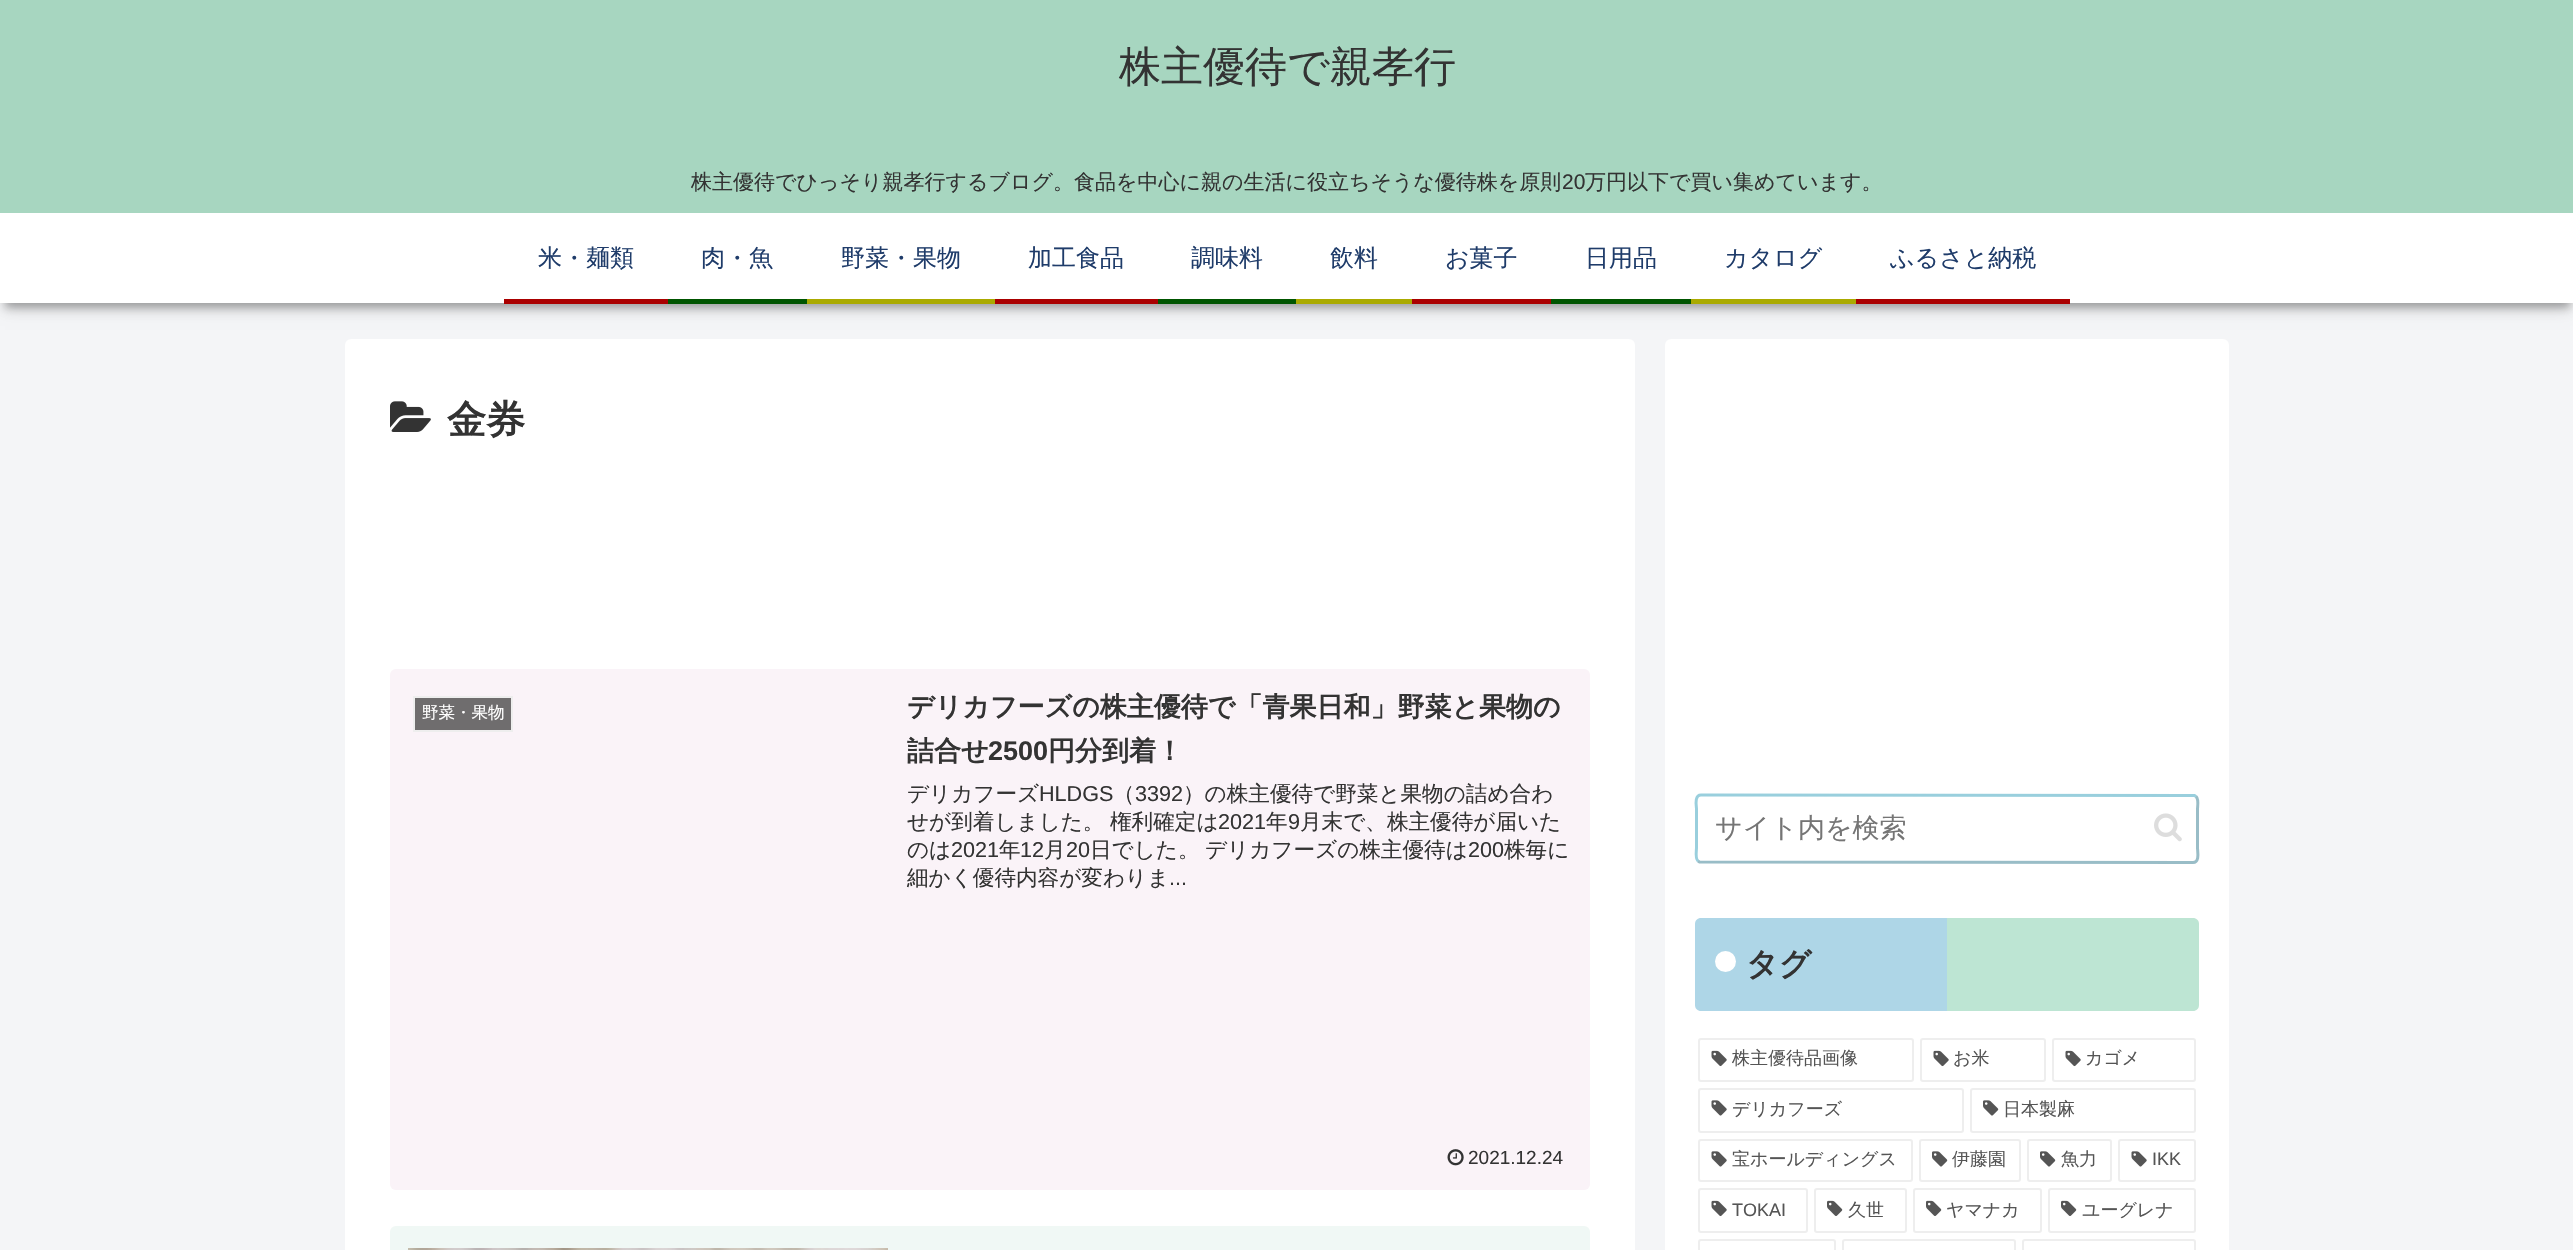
static SkFont makeFont(const char* family, int weight, float size, bool italic = false) {
  SkFontStyle style(weight, SkFontStyle::kNormal_Width,
    italic ? SkFontStyle::kItalic_Slant : SkFontStyle::kUpright_Slant);
  SkFont result(fontMgr->matchFamilyStyle(family, style), size);
  result.setSubpixel(true);
  return result;
}

static void text(SkCanvas* c, const char* s, float x, float y, const SkFont& font, SkColor color) {
  SkPaint ink(SkColor4f::FromColor(color));
  ink.setAntiAlias(true);
  c->drawString(s, x, y, font, ink);
}

static void box(SkCanvas* c, float l, float t, float r, float b, SkColor color) {
  SkPaint ink(SkColor4f::FromColor(color));
  ink.setAntiAlias(true);
  c->drawRect(SkRect::MakeLTRB(l, t, r, b), ink);
}

static void roundBox(SkCanvas* c, float l, float t, float r, float b, float radius, SkColor color) {
  SkPaint ink(SkColor4f::FromColor(color));
  ink.setAntiAlias(true);
  c->drawRoundRect(SkRect::MakeLTRB(l, t, r, b), radius, radius, ink);
}

static void picture(SkCanvas* c, const char* path, float l, float t, float r, float b) {
  auto image = SkImages::DeferredFromEncodedData(SkData::MakeFromFileName(path));
  c->drawImageRect(image, SkRect::MakeLTRB(l, t, r, b), SkSamplingOptions());
}

void draw(SkCanvas* c) {
  SkPaint paint;
  paint.setAntiAlias(true);
  c->clear(0xfff4f5f7);
  paint.setColor(0x2e000000);
  paint.setMaskFilter(SkMaskFilter::MakeBlur(kNormal_SkBlurStyle, 7.5f));
  c->drawRect(SkRect::MakeLTRB(5, 14, 2570, 308), paint);
  paint.setMaskFilter(nullptr);
  paint.setColor(0x3d000000);
  paint.setMaskFilter(SkMaskFilter::MakeBlur(kNormal_SkBlurStyle, 4));
  c->drawRect(SkRect::MakeLTRB(5, 14, 2570, 308), paint);
  paint.setMaskFilter(nullptr);
  box(c, 0, 213, 2573, 303, 0xffffffff);
  box(c, 0, 0, 2573, 213, 0xffa7d6c0);
  SkFont face1 = makeFont("WenQuanYi Zen Hei", 500, 42);
  text(c, "株主優待で親孝行", 1119, 81, face1, 0xff333333);
  SkFont face2 = makeFont("WenQuanYi Zen Hei", 500, 21);
  text(c, "株主優待でひっそり親孝行するブログ。食品を中心に親の生活に役立ちそうな優待株を原則", 691, 189, face2, 0xff333333);
  SkFont face3 = makeFont("Liberation Sans", 400, 21);
  text(c, "20", 1562, 189, face3, 0xff333333);
  text(c, "万円以下で買い集めています。", 1585, 189, face2, 0xff333333);
  box(c, 504, 299, 668, 304, 0xffaa0000);
  SkFont face4 = makeFont("WenQuanYi Zen Hei", 500, 24);
  text(c, "米・麺類", 538, 266, face4, 0xff1f3c6a);
  box(c, 668, 299, 807, 304, 0xff005500);
  text(c, "肉・魚", 701, 266, face4, 0xff1f3c6a);
  box(c, 807, 299, 995, 304, 0xffaaaa00);
  text(c, "野菜・果物", 841, 266, face4, 0xff1f3c6a);
  box(c, 995, 299, 1158, 304, 0xffaa0000);
  text(c, "加工食品", 1028, 266, face4, 0xff1f3c6a);
  box(c, 1158, 299, 1296, 304, 0xff005500);
  text(c, "調味料", 1191, 266, face4, 0xff1f3c6a);
  box(c, 1296, 299, 1412, 304, 0xffaaaa00);
  text(c, "飲料", 1330, 266, face4, 0xff1f3c6a);
  box(c, 1412, 299, 1551, 304, 0xffaa0000);
  text(c, "お菓子", 1445, 266, face4, 0xff1f3c6a);
  box(c, 1551, 299, 1691, 304, 0xff005500);
  text(c, "日用品", 1585, 266, face4, 0xff1f3c6a);
  box(c, 1691, 299, 1856, 304, 0xffaaaa00);
  text(c, "カタログ", 1724, 266, face4, 0xff1f3c6a);
  box(c, 1856, 299, 2070, 304, 0xffaa0000);
  text(c, "ふるさと納税", 1890, 266, face4, 0xff1f3c6a);
  roundBox(c, 345, 339, 1635, 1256, 6, 0xffffffff);
  picture(c, "img_01.png", 390, 401, 431, 432);
  SkFont face5 = makeFont("WenQuanYi Zen Hei", 700, 39);
  text(c, "金券", 447, 433, face5, 0xff333333);
  roundBox(c, 390, 669, 1590, 1190, 6, 0xfffaf3f8);
  paint.setColor(0xff6f6d6e);
  c->drawRect(SkRect::MakeLTRB(414, 697, 512, 731), paint);
  paint.setStyle(SkPaint::kStroke_Style);
  paint.setStrokeWidth(2);
  paint.setColor(0xffeeeeee);
  c->drawRect(SkRect::MakeLTRB(414, 697, 512, 731), paint);
  SkFont face6 = makeFont("WenQuanYi Zen Hei", 500, 16.5f);
  text(c, "野菜・果物", 422, 718, face6, 0xffffffff);
  SkFont face7 = makeFont("WenQuanYi Zen Hei", 700, 27);
  text(c, "デリカフーズの株主優待で「青果日和」野菜と果物の", 907, 716, face7, 0xff333333);
  text(c, "詰合せ", 907, 760, face7, 0xff333333);
  SkFont face8 = makeFont("Liberation Sans", 700, 27);
  text(c, "2500", 988, 760, face8, 0xff333333);
  text(c, "円分到着！", 1048, 760, face7, 0xff333333);
  SkFont face9 = makeFont("WenQuanYi Zen Hei", 500, 21.6f);
  text(c, "デリカフーズ", 907, 801, face9, 0xff333333);
  SkFont face10 = makeFont("Liberation Sans", 400, 21.6f);
  text(c, "HLDGS", 1039, 801, face10, 0xff333333);
  text(c, "（", 1113, 801, face9, 0xff333333);
  text(c, "3392", 1135, 801, face10, 0xff333333);
  text(c, "）の株主優待で野菜と果物の詰め合わ", 1183, 801, face9, 0xff333333);
  text(c, "せが到着しました。", 907, 829, face9, 0xff333333);
  text(c, "権利確定は", 1110, 829, face9, 0xff333333);
  text(c, "2021", 1218, 829, face10, 0xff333333);
  text(c, "年", 1266, 829, face9, 0xff333333);
  text(c, "9", 1288, 829, face10, 0xff333333);
  text(c, "月末で、株主優待が届いた", 1300, 829, face9, 0xff333333);
  text(c, "のは", 907, 857, face9, 0xff333333);
  text(c, "2021", 951, 857, face10, 0xff333333);
  text(c, "年", 999, 857, face9, 0xff333333);
  text(c, "12", 1020, 857, face10, 0xff333333);
  text(c, "月", 1044, 857, face9, 0xff333333);
  text(c, "20", 1066, 857, face10, 0xff333333);
  text(c, "日でした。", 1090, 857, face9, 0xff333333);
  text(c, "デリカフーズの株主優待は", 1205, 857, face9, 0xff333333);
  text(c, "200", 1468, 857, face10, 0xff333333);
  text(c, "株毎に", 1504, 857, face9, 0xff333333);
  text(c, "細かく優待内容が変わりま", 907, 885, face9, 0xff333333);
  text(c, "...", 1169, 885, face10, 0xff333333);
  picture(c, "img_02.png", 1447, 1149, 1464, 1166);
  SkFont face11 = makeFont("Liberation Sans", 400, 19);
  text(c, "2021.12.24", 1468, 1164, face11, 0xff333333);
  roundBox(c, 390, 1226, 1590, 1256, 6, 0xfff0f8f5);
  picture(c, "img_03.png", 408, 1248, 888, 1250);
  roundBox(c, 1665, 339, 2229, 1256, 6, 0xffffffff);
  paint.setStrokeWidth(3);
  paint.setColor(0xff99bdc7);
  c->drawPath(SkPathBuilder().moveTo(2196, 796.5f).cubicTo(2199, 799, 2197.5f, 807.5f, 2197.5f, 809).lineTo(2197.5f, 848).cubicTo(2197.5f, 851, 2200, 862.5f, 2193, 862.5f).lineTo(1699.5f, 862).lineTo(1698, 861).detach(), paint);
  paint.setColor(0x660086ab);
  c->drawPath(SkPathBuilder().moveTo(1698, 861).cubicTo(1695, 858.5f, 1696.5f, 850, 1696.5f, 848).lineTo(1696.5f, 809).cubicTo(1696.5f, 806.5f, 1694, 795, 1701, 795).lineTo(2194.5f, 795.5f).lineTo(2196, 796.5f).detach(), paint);
  SkFont face12 = makeFont("WenQuanYi Zen Hei", 500, 27);
  text(c, "サイト内を検索", 1715, 837, face12, 0xff757575);
  picture(c, "img_04.png", 2154, 813, 2182, 842);
  paint.setStyle(SkPaint::kFill_Style);
  paint.setColor(0xffaed6e7);
  c->drawPath(SkPathBuilder().moveTo(1701, 918).lineTo(1947, 918).lineTo(1947, 1011).lineTo(1701, 1011).cubicTo(1697.5f, 1011, 1695, 1008.5f, 1695, 1005).lineTo(1695, 924).cubicTo(1695, 920.5f, 1697.5f, 918, 1701, 918).close().detach(), paint);
  paint.setColor(0xffbde5d3);
  c->drawPath(SkPathBuilder().moveTo(1947, 918).lineTo(2193, 918).cubicTo(2196.5f, 918, 2199, 920.5f, 2199, 924).lineTo(2199, 1005).cubicTo(2199, 1008.5f, 2196.5f, 1011, 2193, 1011).lineTo(1947, 1011).close().detach(), paint);
  paint.setColor(0xffffffff);
  c->drawCircle(1725.5f, 961.5f, 10.5f, paint);
  SkFont face13 = makeFont("WenQuanYi Zen Hei", 700, 32);
  text(c, "タグ", 1746, 975, face13, 0xff333333);
  paint.setStyle(SkPaint::kStroke_Style);
  paint.setStrokeWidth(2);
  paint.setColor(0xffeeeeee);
  c->drawRoundRect(SkRect::MakeLTRB(1699, 1039, 1913, 1081), 2, 2, paint);
  picture(c, "img_05.png", 1711, 1050, 1727, 1067);
  SkFont face14 = makeFont("WenQuanYi Zen Hei", 500, 18);
  text(c, "株主優待品画像", 1732, 1064, face14, 0xff555555);
  c->drawRoundRect(SkRect::MakeLTRB(1921, 1039, 2045, 1081), 2, 2, paint);
  picture(c, "img_05.png", 1933, 1050, 1949, 1067);
  text(c, "お米", 1953, 1064, face14, 0xff555555);
  c->drawRoundRect(SkRect::MakeLTRB(2053, 1039, 2195, 1081), 2, 2, paint);
  picture(c, "img_05.png", 2065, 1050, 2081, 1067);
  text(c, "カゴメ", 2085, 1064, face14, 0xff555555);
  c->drawRoundRect(SkRect::MakeLTRB(1699, 1089, 1963, 1132), 2, 2, paint);
  picture(c, "img_06.png", 1711, 1100, 1727, 1116);
  text(c, "デリカフーズ", 1732, 1115, face14, 0xff555555);
  c->drawRoundRect(SkRect::MakeLTRB(1971, 1089, 2195, 1132), 2, 2, paint);
  picture(c, "img_07.png", 1983, 1100, 1999, 1116);
  text(c, "日本製麻", 2003, 1115, face14, 0xff555555);
  c->drawRoundRect(SkRect::MakeLTRB(1699, 1140, 1912, 1181), 2, 2, paint);
  picture(c, "img_06.png", 1711, 1151, 1727, 1167);
  text(c, "宝ホールディングス", 1732, 1165, face14, 0xff555555);
  c->drawRoundRect(SkRect::MakeLTRB(1920, 1140, 2020, 1181), 2, 2, paint);
  picture(c, "img_07.png", 1932, 1151, 1948, 1167);
  text(c, "伊藤園", 1952, 1165, face14, 0xff555555);
  c->drawRoundRect(SkRect::MakeLTRB(2028, 1140, 2111, 1181), 2, 2, paint);
  picture(c, "img_07.png", 2040, 1151, 2056, 1167);
  text(c, "魚力", 2061, 1165, face14, 0xff555555);
  c->drawRoundRect(SkRect::MakeLTRB(2119, 1140, 2195, 1181), 2, 2, paint);
  picture(c, "img_06.png", 2131, 1151, 2147, 1167);
  SkFont face15 = makeFont("Liberation Sans", 400, 18);
  text(c, "IKK", 2152, 1165, face15, 0xff555555);
  c->drawRoundRect(SkRect::MakeLTRB(1699, 1189, 1807, 1232), 2, 2, paint);
  picture(c, "img_05.png", 1711, 1200, 1727, 1217);
  text(c, "TOKAI", 1732, 1216, face15, 0xff555555);
  c->drawRoundRect(SkRect::MakeLTRB(1815, 1189, 1906, 1232), 2, 2, paint);
  picture(c, "img_08.png", 1827, 1200, 1843, 1216);
  text(c, "久世", 1848, 1216, face14, 0xff555555);
  c->drawRoundRect(SkRect::MakeLTRB(1914, 1189, 2041, 1232), 2, 2, paint);
  picture(c, "img_08.png", 1926, 1200, 1942, 1216);
  text(c, "ヤマナカ", 1946, 1216, face14, 0xff555555);
  c->drawRoundRect(SkRect::MakeLTRB(2049, 1189, 2195, 1232), 2, 2, paint);
  picture(c, "img_08.png", 2061, 1200, 2077, 1216);
  text(c, "ユーグレナ", 2082, 1216, face14, 0xff555555);
  c->drawRoundRect(SkRect::MakeLTRB(1699, 1240, 1835, 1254), 2, 2, paint);
  c->drawRoundRect(SkRect::MakeLTRB(1843, 1240, 2015, 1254), 2, 2, paint);
  c->drawRoundRect(SkRect::MakeLTRB(2023, 1240, 2195, 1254), 2, 2, paint);
}
